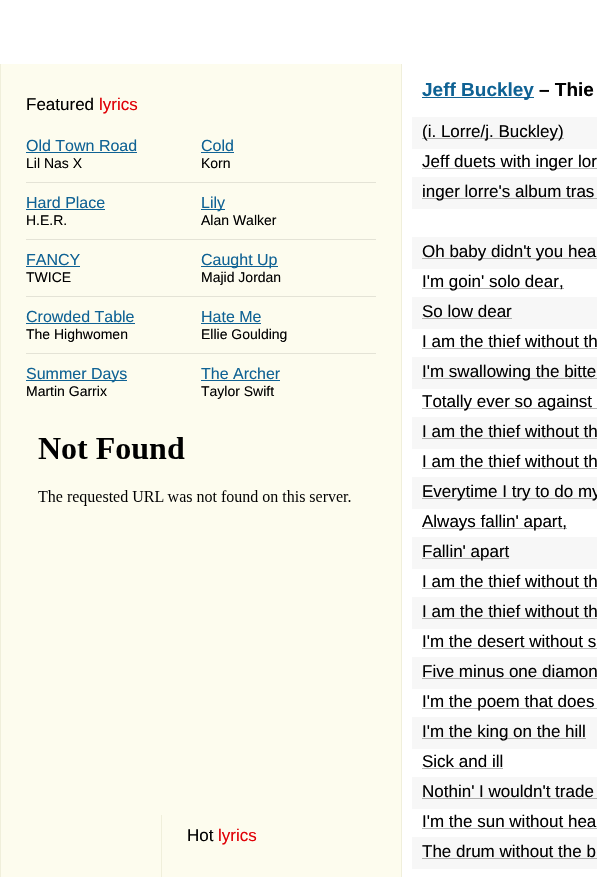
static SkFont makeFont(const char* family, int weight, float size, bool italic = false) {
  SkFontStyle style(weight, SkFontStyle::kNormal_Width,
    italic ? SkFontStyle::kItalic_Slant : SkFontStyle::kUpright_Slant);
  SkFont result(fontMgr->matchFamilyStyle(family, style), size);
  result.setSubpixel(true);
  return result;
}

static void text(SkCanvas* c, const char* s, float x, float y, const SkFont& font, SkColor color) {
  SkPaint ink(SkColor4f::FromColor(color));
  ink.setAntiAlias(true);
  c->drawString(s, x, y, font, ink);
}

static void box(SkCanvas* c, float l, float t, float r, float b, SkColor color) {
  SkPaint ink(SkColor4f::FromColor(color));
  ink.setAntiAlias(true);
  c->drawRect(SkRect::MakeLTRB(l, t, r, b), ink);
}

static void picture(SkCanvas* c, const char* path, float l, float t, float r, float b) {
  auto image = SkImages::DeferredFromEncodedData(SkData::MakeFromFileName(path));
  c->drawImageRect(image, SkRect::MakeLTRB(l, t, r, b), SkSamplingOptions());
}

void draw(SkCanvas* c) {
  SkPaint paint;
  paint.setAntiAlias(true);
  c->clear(0xffffffff);
  box(c, 0, 64, 1, 877, 0xfff0efdb);
  box(c, 1, 64, 401, 877, 0xfffdfcee);
  box(c, 401, 64, 402, 877, 0xfff0efdb);
  SkFont face1 = makeFont("Liberation Sans", 400, 17);
  text(c, "Featured", 26, 110, face1, 0xff000000);
  text(c, "lyrics", 99, 110, face1, 0xffe00107);
  box(c, 26, 182, 376, 183, 0xffe4e3d6);
  SkFont face2 = makeFont("Liberation Sans", 400, 16);
  text(c, "Old Town Road", 26, 151, face2, 0xff0f6294);
  box(c, 26, 152, 137, 153, 0xff0f6294);
  SkFont face3 = makeFont("Liberation Sans", 400, 14);
  text(c, "Lil Nas X", 26, 168, face3, 0xff000000);
  text(c, "Cold", 201, 151, face2, 0xff0f6294);
  box(c, 201, 152, 234, 153, 0xff0f6294);
  text(c, "Korn", 201, 168, face3, 0xff000000);
  box(c, 26, 239, 376, 240, 0xffe4e3d6);
  text(c, "Hard Place", 26, 208, face2, 0xff0f6294);
  box(c, 26, 209, 105, 210, 0xff0f6294);
  text(c, "H.E.R.", 26, 225, face3, 0xff000000);
  box(c, 201, 209, 225, 210, 0xff0f6294);
  text(c, "Lily", 201, 208, face2, 0xff0f6294);
  text(c, "Alan Walker", 201, 225, face3, 0xff000000);
  box(c, 26, 296, 376, 297, 0xffe4e3d6);
  text(c, "FANCY", 26, 265, face2, 0xff0f6294);
  box(c, 26, 266, 80, 267, 0xff0f6294);
  text(c, "TWICE", 26, 282, face3, 0xff000000);
  box(c, 201, 266, 278, 267, 0xff0f6294);
  text(c, "Caught Up", 201, 265, face2, 0xff0f6294);
  text(c, "Majid Jordan", 201, 282, face3, 0xff000000);
  box(c, 26, 353, 376, 354, 0xffe4e3d6);
  text(c, "Crowded Table", 26, 322, face2, 0xff0f6294);
  box(c, 26, 323, 135, 324, 0xff0f6294);
  text(c, "The Highwomen", 26, 339, face3, 0xff000000);
  text(c, "Hate Me", 201, 322, face2, 0xff0f6294);
  box(c, 201, 323, 261, 324, 0xff0f6294);
  text(c, "Ellie Goulding", 201, 339, face3, 0xff000000);
  box(c, 26, 380, 127, 381, 0xff0f6294);
  text(c, "Summer Days", 26, 379, face2, 0xff0f6294);
  text(c, "Martin Garrix", 26, 396, face3, 0xff000000);
  text(c, "The Archer", 201, 379, face2, 0xff0f6294);
  box(c, 201, 380, 280, 381, 0xff0f6294);
  text(c, "Taylor Swift", 201, 396, face3, 0xff000000);
  picture(c, "img_01.png", 38, 437, 351, 506);
  box(c, 161, 815, 162, 877, 0xfff0efdb);
  text(c, "Hot", 187, 841, face1, 0xff000000);
  text(c, "lyrics", 218, 841, face1, 0xffe00107);
  box(c, 422, 97, 534, 98, 0xff0f6294);
  SkFont face4 = makeFont("Liberation Sans", 700, 19);
  text(c, "Jeff Buckley", 422, 96, face4, 0xff0f6294);
  text(c, "– Thie", 539, 96, face4, 0xff000000);
  picture(c, "img_02.png", 412, 117, 597, 869);
  box(c, 422, 138, 564, 139, 0xffadadad);
  text(c, "(i. Lorre/j. Buckley)", 422, 137, face1, 0xff000000);
  box(c, 422, 168, 597, 169, 0xffb3b3b3);
  text(c, "Jeff duets with inger lor", 422, 167, face1, 0xff000000);
  box(c, 422, 198, 597, 199, 0xffadadad);
  text(c, "inger lorre's album tras", 422, 197, face1, 0xff000000);
  box(c, 422, 258, 597, 259, 0xffadadad);
  text(c, "Oh baby didn't you hea", 422, 257, face1, 0xff000000);
  box(c, 422, 288, 564, 289, 0xffb3b3b3);
  text(c, "I'm goin' solo dear,", 422, 287, face1, 0xff000000);
  text(c, "So low dear", 422, 317, face1, 0xff000000);
  box(c, 422, 318, 512, 319, 0xffadadad);
  text(c, "I am the thief without th", 422, 347, face1, 0xff000000);
  box(c, 422, 348, 597, 349, 0xffb3b3b3);
  box(c, 422, 378, 597, 379, 0xffadadad);
  text(c, "I'm swallowing the bitte", 422, 377, face1, 0xff000000);
  box(c, 422, 408, 597, 409, 0xffb3b3b3);
  text(c, "Totally ever so against", 422, 407, face1, 0xff000000);
  text(c, "I am the thief without th", 422, 437, face1, 0xff000000);
  box(c, 422, 438, 597, 439, 0xffadadad);
  text(c, "I am the thief without th", 422, 467, face1, 0xff000000);
  box(c, 422, 468, 597, 469, 0xffb3b3b3);
  box(c, 422, 498, 597, 499, 0xffadadad);
  text(c, "Everytime I try to do my", 422, 497, face1, 0xff000000);
  box(c, 422, 528, 567, 529, 0xffb3b3b3);
  text(c, "Always fallin' apart,", 422, 527, face1, 0xff000000);
  box(c, 422, 558, 509, 559, 0xffadadad);
  text(c, "Fallin' apart", 422, 557, face1, 0xff000000);
  text(c, "I am the thief without th", 422, 587, face1, 0xff000000);
  box(c, 422, 588, 597, 589, 0xffb3b3b3);
  text(c, "I am the thief without th", 422, 617, face1, 0xff000000);
  box(c, 422, 618, 597, 619, 0xffadadad);
  text(c, "I'm the desert without s", 422, 647, face1, 0xff000000);
  box(c, 422, 648, 597, 649, 0xffb3b3b3);
  text(c, "Five minus one diamon", 422, 677, face1, 0xff000000);
  box(c, 422, 678, 597, 679, 0xffadadad);
  box(c, 422, 708, 597, 709, 0xffb3b3b3);
  text(c, "I'm the poem that does", 422, 707, face1, 0xff000000);
  box(c, 422, 738, 586, 739, 0xffadadad);
  text(c, "I'm the king on the hill", 422, 737, face1, 0xff000000);
  text(c, "Sick and ill", 422, 767, face1, 0xff000000);
  box(c, 422, 768, 503, 769, 0xffb3b3b3);
  text(c, "Nothin' I wouldn't trade", 422, 797, face1, 0xff000000);
  box(c, 422, 798, 597, 799, 0xffadadad);
  text(c, "I'm the sun without hea", 422, 827, face1, 0xff000000);
  box(c, 422, 828, 597, 829, 0xffb3b3b3);
  text(c, "The drum without the b", 422, 857, face1, 0xff000000);
  box(c, 422, 858, 597, 859, 0xffadadad);
}
